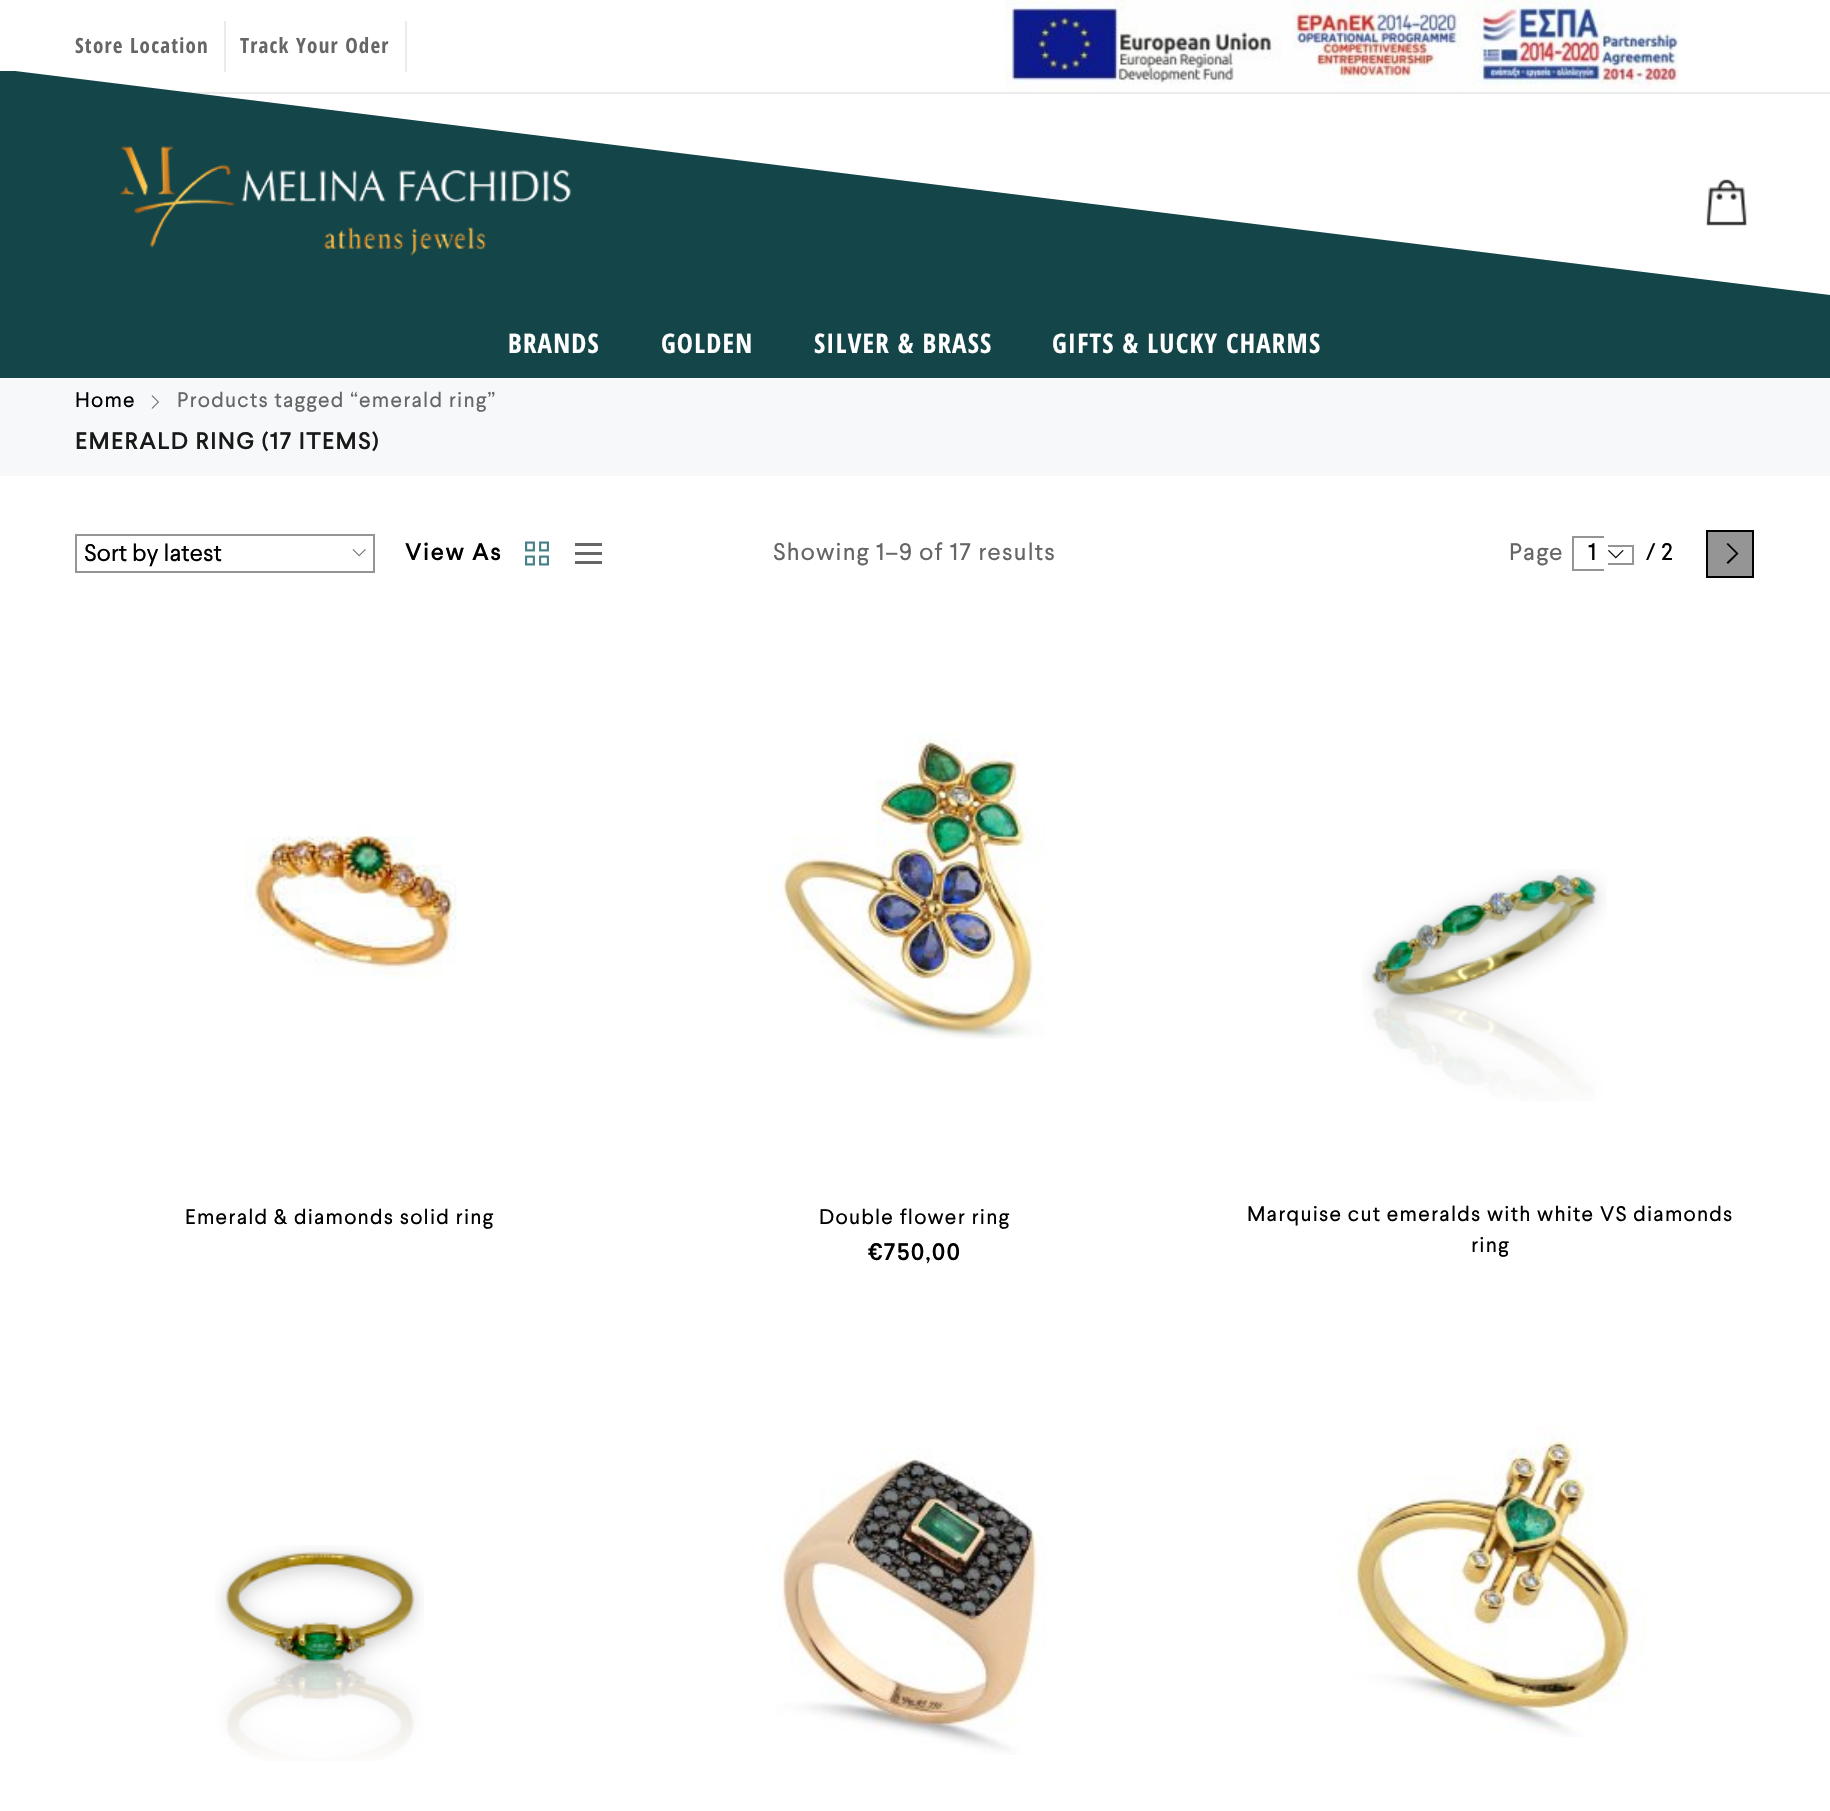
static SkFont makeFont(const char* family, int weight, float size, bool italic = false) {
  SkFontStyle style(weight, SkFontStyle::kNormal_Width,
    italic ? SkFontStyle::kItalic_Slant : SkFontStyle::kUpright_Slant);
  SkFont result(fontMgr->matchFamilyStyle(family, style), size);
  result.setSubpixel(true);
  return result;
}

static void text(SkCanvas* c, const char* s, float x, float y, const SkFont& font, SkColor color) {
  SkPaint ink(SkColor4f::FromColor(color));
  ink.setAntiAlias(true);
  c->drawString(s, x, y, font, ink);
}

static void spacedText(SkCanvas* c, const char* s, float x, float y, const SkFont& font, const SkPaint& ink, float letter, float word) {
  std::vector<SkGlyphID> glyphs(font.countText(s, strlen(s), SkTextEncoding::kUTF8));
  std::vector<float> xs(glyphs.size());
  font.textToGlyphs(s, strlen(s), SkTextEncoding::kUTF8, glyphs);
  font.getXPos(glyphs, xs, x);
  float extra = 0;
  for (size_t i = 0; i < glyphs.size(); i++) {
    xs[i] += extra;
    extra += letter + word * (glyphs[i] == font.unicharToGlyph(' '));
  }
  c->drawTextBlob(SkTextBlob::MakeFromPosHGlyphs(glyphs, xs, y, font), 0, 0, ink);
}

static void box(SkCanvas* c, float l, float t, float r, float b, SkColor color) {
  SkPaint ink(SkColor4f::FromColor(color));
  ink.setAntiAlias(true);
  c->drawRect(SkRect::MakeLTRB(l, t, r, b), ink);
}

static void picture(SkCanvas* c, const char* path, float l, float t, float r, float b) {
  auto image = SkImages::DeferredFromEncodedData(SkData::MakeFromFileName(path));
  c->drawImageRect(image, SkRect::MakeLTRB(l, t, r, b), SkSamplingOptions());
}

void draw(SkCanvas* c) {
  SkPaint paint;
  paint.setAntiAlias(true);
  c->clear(0xffffffff);
  box(c, 185, 92, 1830, 94, 0xffebebeb);
  box(c, 224, 21, 226, 72, 0xffebebeb);
  SkFont face1 = makeFont("Open Sans Condensed", 700, 21);
  paint.setColor(0xff666666);
  spacedText(c, "Store Location", 75, 53, face1, paint, 1.2f, 0);
  box(c, 405, 21, 407, 72, 0xffebebeb);
  spacedText(c, "Track Your Oder", 240, 53, face1, paint, 1.2f, 0);
  picture(c, "img_01.png", 1005, 0, 1679, 92);
  c->save();
  c->clipRect(SkRect::MakeLTRB(0, 71, 1830, 311));
  paint.setColor(0xff134549);
  c->drawPath(SkPathBuilder().moveTo(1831, 295).lineTo(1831, 309).lineTo(-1, 309).lineTo(-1, 69).close().detach(), paint);
  c->restore();
  picture(c, "img_02.png", 119, 146, 571, 256);
  picture(c, "img_03.png", 1705, 178, 1748, 226);
  box(c, 0, 309, 1830, 378, 0xff134549);
  SkFont face2 = makeFont("Open Sans Condensed", 700, 27);
  paint.setColor(0xffffffff);
  spacedText(c, "BRANDS", 508, 353, face2, paint, 1.2f, 0);
  spacedText(c, "GOLDEN", 661, 353, face2, paint, 1.2f, 0);
  spacedText(c, "SILVER & BRASS", 814, 353, face2, paint, 1.2f, 0);
  spacedText(c, "GIFTS & LUCKY CHARMS", 1052, 353, face2, paint, 1.2f, 0);
  box(c, 0, 378, 1830, 476, 0xfff6f8fa);
  SkFont face3 = makeFont("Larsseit", 400, 21);
  paint.setColor(0xff000000);
  spacedText(c, "Home", 75, 407, face3, paint, 1.2f, 0);
  picture(c, "img_04.png", 151, 395, 159, 409);
  paint.setColor(0xff666666);
  spacedText(c, "Products tagged “emerald ring”", 177, 407, face3, paint, 1.2f, 0);
  SkFont face4 = makeFont("Larsseit", 500, 24);
  paint.setColor(0xff191919);
  spacedText(c, "EMERALD RING (17 ITEMS)", 75, 449, face4, paint, 1.2f, 0);
  picture(c, "img_05.png", 352, 549, 366, 557);
  paint.setStyle(SkPaint::kStroke_Style);
  paint.setStrokeWidth(2);
  paint.setColor(0xff959595);
  c->drawRect(SkRect::MakeLTRB(76, 535, 374, 572), paint);
  SkFont face5 = makeFont("Larsseit", 400, 24);
  text(c, "Sort by latest", 84, 561, face5, 0xff000000);
  paint.setStyle(SkPaint::kFill_Style);
  paint.setColor(0xff000000);
  spacedText(c, "View As", 405, 560, face4, paint, 1.5f, 0);
  picture(c, "img_06.png", 525, 541, 549, 566);
  box(c, 575, 552, 602, 555, 0xff666666);
  box(c, 575, 543, 602, 546, 0xff666666);
  box(c, 575, 561, 602, 564, 0xff666666);
  paint.setColor(0xff666666);
  spacedText(c, "Showing 1–9 of 17 results", 773, 560, face5, paint, 1.2f, 0);
  spacedText(c, "Page", 1509, 560, face5, paint, 1.2f, 0);
  paint.setColor(0xff000000);
  spacedText(c, "1", 1588, 560, face5, paint, 1.2f, 0);
  box(c, 1572, 536, 1604, 538, 0xff959595);
  box(c, 1572, 569, 1604, 571, 0xff959595);
  box(c, 1572, 536, 1574, 570, 0xff959595);
  box(c, 1608, 545, 1634, 547, 0xff959595);
  box(c, 1632, 545, 1634, 564, 0xff959595);
  box(c, 1608, 563, 1634, 565, 0xff959595);
  picture(c, "img_07.png", 1608, 550, 1624, 559);
  spacedText(c, "/", 1646, 560, face5, paint, 1.2f, 0);
  spacedText(c, "2", 1661, 560, face5, paint, 1.2f, 0);
  paint.setColor(0xff959595);
  c->drawRect(SkRect::MakeLTRB(1707, 531, 1753, 577), paint);
  paint.setStyle(SkPaint::kStroke_Style);
  paint.setColor(0xff000000);
  c->drawRect(SkRect::MakeLTRB(1707, 531, 1753, 577), paint);
  paint.setStyle(SkPaint::kFill_Style);
  c->drawPath(SkPathBuilder().moveTo(1728, 543).lineTo(1738.5f, 553.5f).lineTo(1728, 564).lineTo(1726.5f, 562.5f).lineTo(1736, 553.5f).lineTo(1726.5f, 544).close().detach(), paint);
  picture(c, "img_08.png", 244, 823, 457, 978);
  spacedText(c, "Emerald & diamonds solid ring", 185, 1224, face3, paint, 1.2f, 0);
  picture(c, "img_09.png", 768, 732, 1045, 1039);
  spacedText(c, "Double flower ring", 819, 1224, face3, paint, 1.2f, 0);
  spacedText(c, "€750,00", 868, 1260, face4, paint, 1.2f, 0);
  picture(c, "img_10.png", 1362, 869, 1607, 1101);
  spacedText(c, "Marquise cut emeralds with white VS diamonds", 1247, 1221, face3, paint, 1.2f, 0);
  spacedText(c, "ring", 1471, 1252, face3, paint, 1.2f, 0);
  picture(c, "img_11.png", 215, 1545, 424, 1761);
  picture(c, "img_12.png", 764, 1448, 1046, 1755);
  picture(c, "img_13.png", 1338, 1426, 1646, 1737);
}
